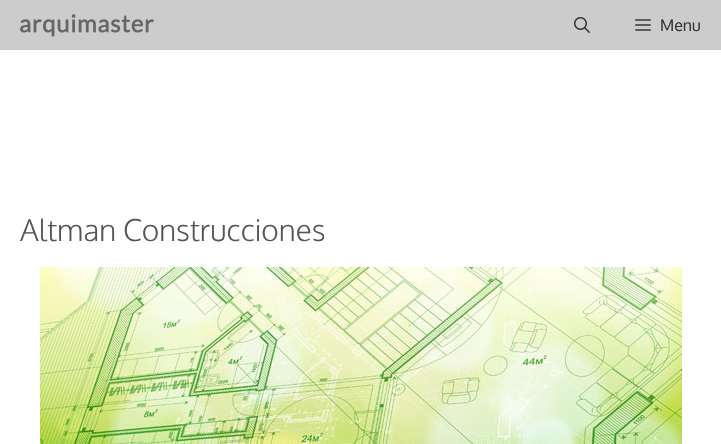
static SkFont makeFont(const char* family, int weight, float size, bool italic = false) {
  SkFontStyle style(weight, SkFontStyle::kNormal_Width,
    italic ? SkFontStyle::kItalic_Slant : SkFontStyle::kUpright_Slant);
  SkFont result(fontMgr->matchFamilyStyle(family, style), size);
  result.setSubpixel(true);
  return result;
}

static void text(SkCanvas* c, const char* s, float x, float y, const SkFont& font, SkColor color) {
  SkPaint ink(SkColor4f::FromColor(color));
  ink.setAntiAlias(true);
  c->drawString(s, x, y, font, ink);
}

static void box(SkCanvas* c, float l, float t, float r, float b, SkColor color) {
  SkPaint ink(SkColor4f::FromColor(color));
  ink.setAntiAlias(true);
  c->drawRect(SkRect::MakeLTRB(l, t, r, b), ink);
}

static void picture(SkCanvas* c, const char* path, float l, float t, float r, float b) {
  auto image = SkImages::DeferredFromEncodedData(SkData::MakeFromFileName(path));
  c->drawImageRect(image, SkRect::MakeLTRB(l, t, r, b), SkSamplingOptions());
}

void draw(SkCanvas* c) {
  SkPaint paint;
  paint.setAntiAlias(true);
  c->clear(0xffcccccc);
  picture(c, "img_01.png", 20, 14, 154, 37);
  picture(c, "img_02.png", 574, 17, 590, 33);
  picture(c, "img_03.png", 635, 19, 651, 31);
  SkFont face1 = makeFont("Oxygen", 400, 16);
  text(c, "Menu", 660, 31, face1, 0xff333333);
  box(c, 0, 50, 721, 444, 0xffffffff);
  SkFont face2 = makeFont("Oxygen", 300, 30);
  text(c, "Altman Construcciones", 20, 241, face2, 0xff555555);
  picture(c, "img_04.png", 40, 267, 682, 444);
}
